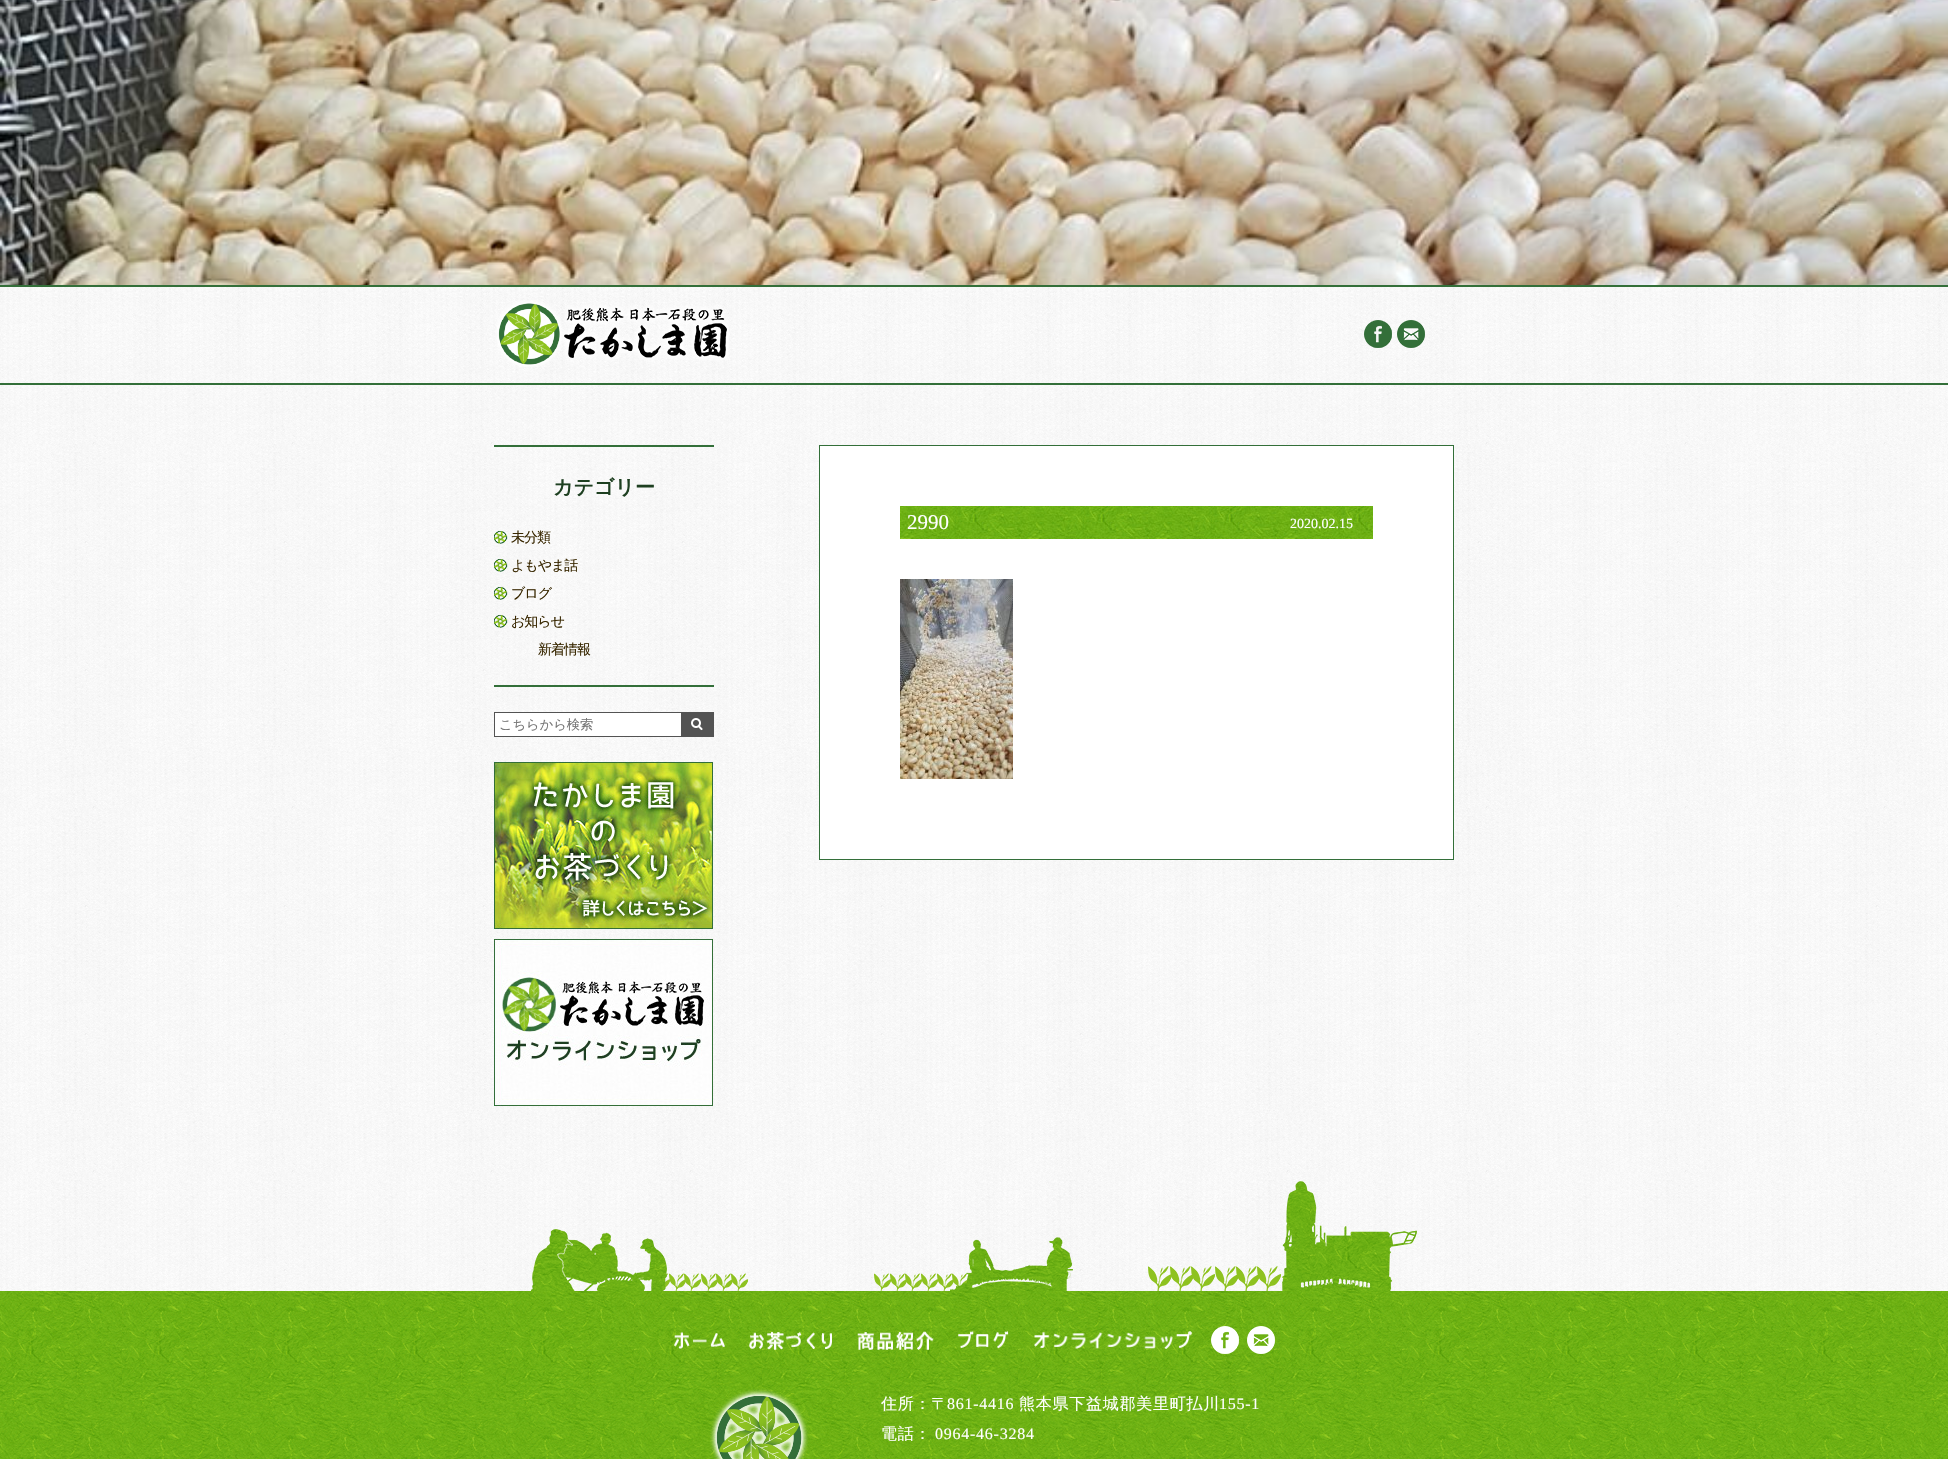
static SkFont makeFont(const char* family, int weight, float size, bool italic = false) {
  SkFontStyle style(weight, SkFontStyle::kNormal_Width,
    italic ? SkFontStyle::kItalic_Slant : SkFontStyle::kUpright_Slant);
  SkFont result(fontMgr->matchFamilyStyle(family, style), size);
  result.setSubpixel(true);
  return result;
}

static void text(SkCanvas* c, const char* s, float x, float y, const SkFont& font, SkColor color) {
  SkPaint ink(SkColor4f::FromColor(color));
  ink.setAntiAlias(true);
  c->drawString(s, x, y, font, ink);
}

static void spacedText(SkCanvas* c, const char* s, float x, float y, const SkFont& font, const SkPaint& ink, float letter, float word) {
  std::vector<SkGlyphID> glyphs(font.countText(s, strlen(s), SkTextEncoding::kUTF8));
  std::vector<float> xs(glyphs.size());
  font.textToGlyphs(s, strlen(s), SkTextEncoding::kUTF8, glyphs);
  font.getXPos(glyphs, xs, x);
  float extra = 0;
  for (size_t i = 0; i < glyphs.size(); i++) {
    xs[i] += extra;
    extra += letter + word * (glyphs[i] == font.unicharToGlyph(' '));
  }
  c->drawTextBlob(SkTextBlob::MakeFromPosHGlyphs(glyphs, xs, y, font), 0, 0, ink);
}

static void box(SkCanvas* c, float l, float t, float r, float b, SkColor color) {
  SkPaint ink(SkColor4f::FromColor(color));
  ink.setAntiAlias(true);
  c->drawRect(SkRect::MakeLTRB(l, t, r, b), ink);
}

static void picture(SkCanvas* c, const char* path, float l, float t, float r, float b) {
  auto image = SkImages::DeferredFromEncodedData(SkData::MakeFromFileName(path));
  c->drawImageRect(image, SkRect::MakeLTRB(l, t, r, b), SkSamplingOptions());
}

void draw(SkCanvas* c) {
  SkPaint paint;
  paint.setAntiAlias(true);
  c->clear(0xffffffff);
  picture(c, "img_01.png", 0, 0, 1948, 285);
  picture(c, "img_02.png", 0, 287, 1948, 383);
  box(c, 0, 285, 1948, 287, 0xff336f39);
  box(c, 0, 383, 1948, 385, 0xff336f39);
  picture(c, "img_03.png", 497, 300, 729, 367);
  picture(c, "img_04.png", 1364, 320, 1392, 348);
  picture(c, "img_05.png", 1397, 320, 1425, 348);
  picture(c, "img_06.png", 0, 385, 1948, 1291);
  box(c, 494, 445, 714, 447, 0xff336f39);
  SkFont face1 = makeFont("WenQuanYi Zen Hei", 700, 20);
  text(c, "カテゴリー", 553, 494, face1, 0xff1e4021);
  picture(c, "img_07.png", 494, 531, 508, 544);
  SkFont face2 = makeFont("WenQuanYi Zen Hei", 500, 14);
  paint.setColor(0xff382700);
  spacedText(c, "未分類", 511, 542, face2, paint, -1, 0);
  picture(c, "img_08.png", 494, 559, 508, 572);
  spacedText(c, "よもやま話", 511, 570, face2, paint, -1, 0);
  picture(c, "img_09.png", 494, 587, 508, 600);
  spacedText(c, "ブログ", 511, 598, face2, paint, -1, 0);
  picture(c, "img_10.png", 494, 615, 508, 628);
  spacedText(c, "お知らせ", 511, 626, face2, paint, -1, 0);
  spacedText(c, "新着情報", 538, 654, face2, paint, -1, 0);
  box(c, 494, 685, 714, 687, 0xff336f39);
  box(c, 495, 713, 681, 736, 0xffffffff);
  paint.setStyle(SkPaint::kStroke_Style);
  paint.setStrokeWidth(1);
  paint.setColor(0xff535353);
  c->drawRect(SkRect::MakeLTRB(494.5f, 712.5f, 713.5f, 736.5f), paint);
  SkFont face3 = makeFont("WenQuanYi Zen Hei", 500, 13.25f);
  text(c, "こちらから検索", 499, 729, face3, 0xff757575);
  picture(c, "img_11.png", 681, 713, 713, 736);
  picture(c, "img_12.png", 494, 762, 713, 929);
  picture(c, "img_13.png", 494, 939, 713, 1106);
  paint.setStyle(SkPaint::kFill_Style);
  paint.setColor(0xffffffff);
  c->drawRect(SkRect::MakeLTRB(819.5f, 445.5f, 1453.5f, 859.5f), paint);
  paint.setStyle(SkPaint::kStroke_Style);
  paint.setColor(0xff336f39);
  c->drawRect(SkRect::MakeLTRB(819.5f, 445.5f, 1453.5f, 859.5f), paint);
  picture(c, "img_14.png", 900, 506, 1373, 539);
  SkFont face4 = makeFont("Liberation Serif", 400, 21);
  text(c, "2990", 907, 529, face4, 0xffffffff);
  SkFont face5 = makeFont("Liberation Serif", 400, 14);
  text(c, "2020.02.15", 1290, 528, face5, 0xffffffff);
  picture(c, "img_15.png", 900, 579, 1013, 779);
  picture(c, "img_16.png", 531, 1181, 1417, 1291);
  picture(c, "img_17.png", 0, 1291, 1948, 1459);
  picture(c, "img_18.png", 674, 1332, 725, 1349);
  picture(c, "img_19.png", 749, 1332, 832, 1350);
  picture(c, "img_20.png", 857, 1331, 934, 1350);
  picture(c, "img_21.png", 958, 1331, 1009, 1349);
  picture(c, "img_22.png", 1034, 1331, 1192, 1349);
  picture(c, "img_23.png", 1211, 1326, 1239, 1354);
  picture(c, "img_24.png", 1247, 1326, 1275, 1354);
  picture(c, "img_25.png", 710, 1389, 808, 1459);
  SkFont face6 = makeFont("WenQuanYi Zen Hei", 500, 16);
  paint.setStyle(SkPaint::kFill_Style);
  paint.setColor(0xffffffff);
  spacedText(c, "住所：〒", 881, 1409, face6, paint, 0.75f, 0);
  SkFont face7 = makeFont("Liberation Serif", 400, 16);
  spacedText(c, "861-4416", 947, 1409, face7, paint, 0.75f, 0);
  spacedText(c, "熊本県下益城郡美里町払川", 1019, 1409, face6, paint, 0.75f, 0);
  spacedText(c, "155-1", 1219, 1409, face7, paint, 0.75f, 0);
  spacedText(c, "電話：", 881, 1439, face6, paint, 0.75f, 0);
  spacedText(c, "0964-46-3284", 935, 1439, face7, paint, 0.75f, 0);
}
